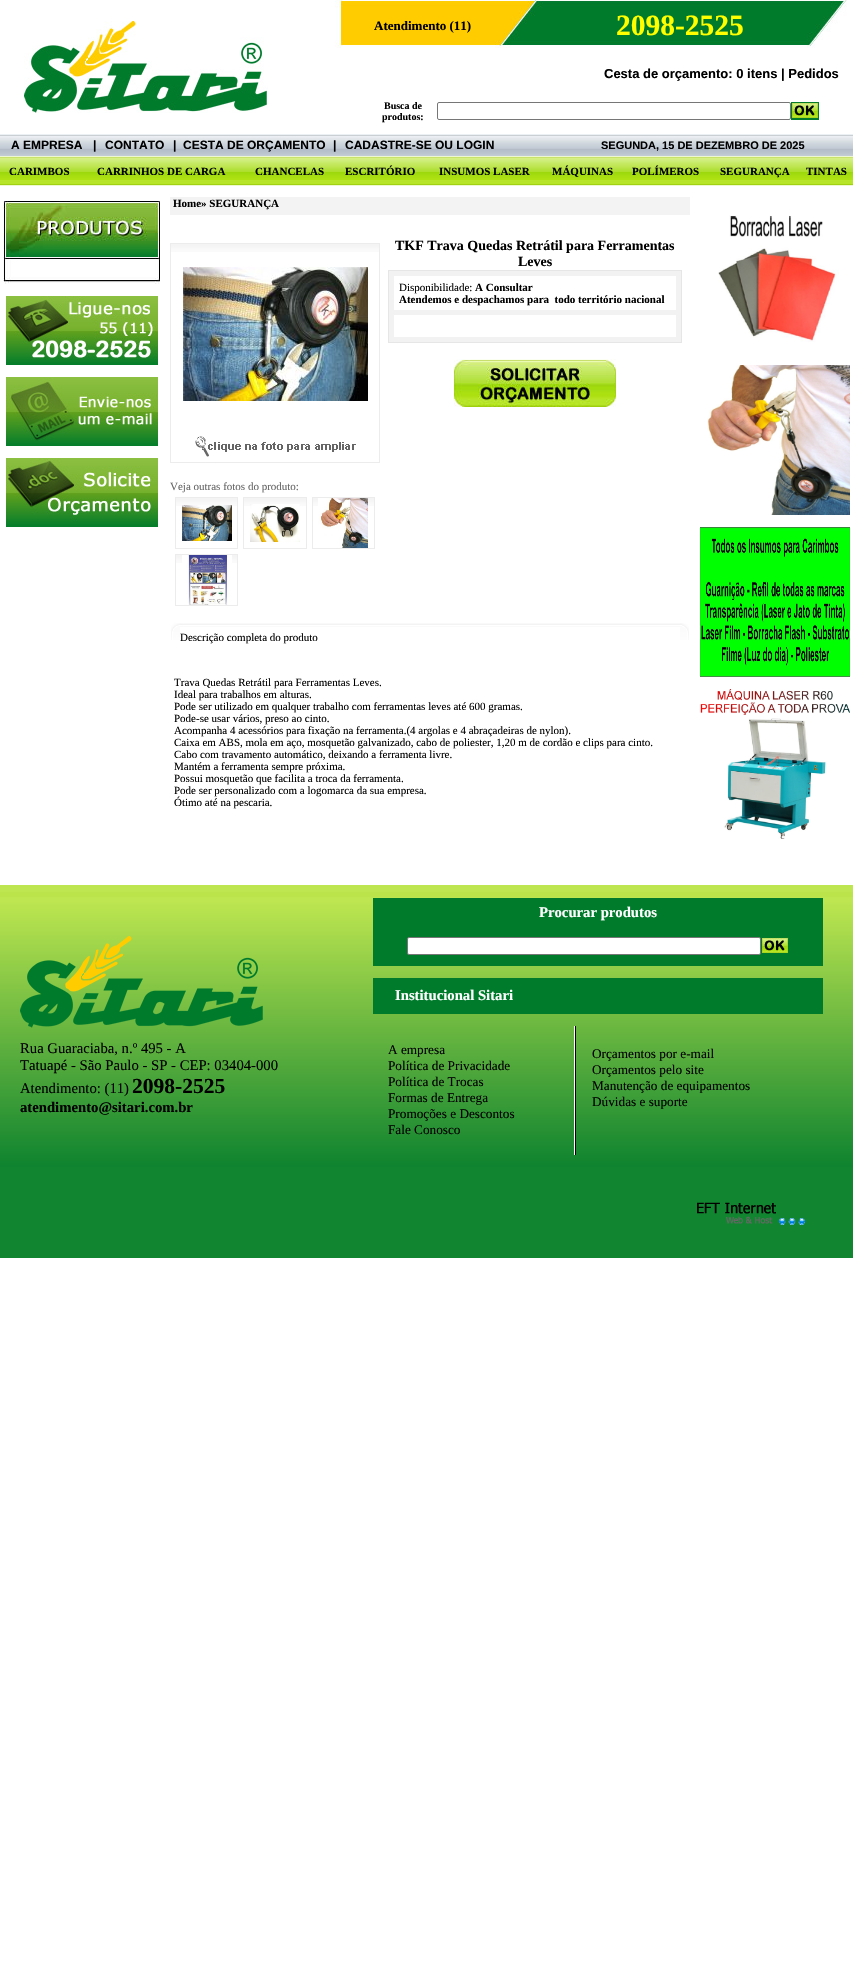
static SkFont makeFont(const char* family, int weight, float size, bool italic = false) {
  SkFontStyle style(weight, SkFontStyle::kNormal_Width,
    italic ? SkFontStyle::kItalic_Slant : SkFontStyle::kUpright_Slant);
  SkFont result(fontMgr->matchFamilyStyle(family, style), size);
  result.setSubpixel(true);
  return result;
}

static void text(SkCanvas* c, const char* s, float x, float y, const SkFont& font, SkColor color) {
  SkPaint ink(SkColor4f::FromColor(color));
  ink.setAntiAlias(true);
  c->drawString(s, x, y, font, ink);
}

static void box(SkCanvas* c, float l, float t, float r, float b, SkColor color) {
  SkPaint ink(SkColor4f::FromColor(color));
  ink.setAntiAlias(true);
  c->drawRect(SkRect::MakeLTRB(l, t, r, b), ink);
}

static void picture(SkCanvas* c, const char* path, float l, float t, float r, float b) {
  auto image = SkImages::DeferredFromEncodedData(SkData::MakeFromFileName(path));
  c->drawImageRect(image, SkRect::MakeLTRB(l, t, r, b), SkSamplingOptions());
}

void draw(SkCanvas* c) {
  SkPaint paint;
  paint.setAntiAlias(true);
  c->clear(0xffffffff);
  picture(c, "img_01.png", 24, 21, 268, 113);
  picture(c, "img_02.png", 335, 0, 847, 48);
  SkFont face1 = makeFont("Liberation Serif", 700, 13);
  text(c, "Atendimento (11)", 374, 30, face1, 0xff000000);
  SkFont face2 = makeFont("Liberation Serif", 700, 29.5f);
  text(c, "2098-2525", 616, 35, face2, 0xffffff00);
  SkFont face3 = makeFont("Liberation Sans", 700, 13);
  text(c, "Cesta de orçamento: 0 itens | Pedidos", 604, 78, face3, 0xff000000);
  SkFont face4 = makeFont("Liberation Serif", 700, 10);
  text(c, "Busca de", 384, 109, face4, 0xff000000);
  text(c, "produtos:", 382, 120, face4, 0xff000000);
  paint.setStyle(SkPaint::kStroke_Style);
  paint.setStrokeWidth(1);
  paint.setColor(0xff767676);
  c->drawRoundRect(SkRect::MakeLTRB(437.5f, 102.5f, 790.5f, 119.5f), 1.5f, 1.5f, paint);
  picture(c, "img_03.png", 791, 102, 819, 120);
  picture(c, "img_04.png", 0, 134, 853, 156);
  SkFont face5 = makeFont("Liberation Sans", 700, 12);
  text(c, "A EMPRESA", 11, 149, face5, 0xff000000);
  text(c, "|", 93, 149, face5, 0xff000000);
  text(c, "CONTATO", 105, 149, face5, 0xff000000);
  text(c, "|", 173, 149, face5, 0xff000000);
  text(c, "CESTA DE ORÇAMENTO", 183, 149, face5, 0xff000000);
  text(c, "|", 333, 149, face5, 0xff000000);
  text(c, "CADASTRE-SE OU LOGIN", 345, 149, face5, 0xff000000);
  SkFont face6 = makeFont("Liberation Sans", 700, 11);
  text(c, "SEGUNDA, 15 DE DEZEMBRO DE 2025", 601, 149, face6, 0xff000000);
  picture(c, "img_05.png", 0, 156, 853, 186);
  SkFont face7 = makeFont("Liberation Serif", 700, 11);
  text(c, "CARIMBOS", 9, 175, face7, 0xff000000);
  text(c, "CARRINHOS DE CARGA", 97, 175, face7, 0xff000000);
  text(c, "CHANCELAS", 255, 175, face7, 0xff000000);
  text(c, "ESCRITÓRIO", 345, 175, face7, 0xff000000);
  text(c, "INSUMOS LASER", 439, 175, face7, 0xff000000);
  text(c, "MÁQUINAS", 552, 175, face7, 0xff000000);
  text(c, "POLÍMEROS", 632, 175, face7, 0xff000000);
  text(c, "SEGURANÇA", 720, 175, face7, 0xff000000);
  text(c, "TINTAS", 806, 175, face7, 0xff000000);
  picture(c, "img_06.png", 3, 201, 160, 260);
  picture(c, "img_07.png", 3, 260, 160, 265);
  picture(c, "img_08.png", 3, 265, 160, 277);
  picture(c, "img_09.png", 3, 277, 160, 284);
  picture(c, "img_10.png", 6, 296, 158, 365);
  picture(c, "img_11.png", 6, 377, 158, 446);
  picture(c, "img_12.png", 6, 458, 158, 527);
  box(c, 170, 197, 690, 215, 0xfff3f3f3);
  text(c, "Home» SEGURANÇA", 173, 207, face7, 0xff000000);
  picture(c, "img_13.png", 171, 244, 379, 252);
  paint.setColor(0xffececec);
  c->drawRect(SkRect::MakeLTRB(170.5f, 243.5f, 379.5f, 462.5f), paint);
  picture(c, "img_14.png", 183, 267, 368, 401);
  picture(c, "img_15.png", 195, 436, 356, 457);
  SkFont face8 = makeFont("Liberation Serif", 700, 14);
  text(c, "TKF Trava Quedas Retrátil para Ferramentas", 395, 250, face8, 0xff000000);
  text(c, "Leves", 518, 266, face8, 0xff000000);
  paint.setStyle(SkPaint::kFill_Style);
  paint.setColor(0xfff2f2f2);
  c->drawRect(SkRect::MakeLTRB(388.5f, 270.5f, 681.5f, 342.5f), paint);
  paint.setStyle(SkPaint::kStroke_Style);
  paint.setColor(0xffe6e6e6);
  c->drawRect(SkRect::MakeLTRB(388.5f, 270.5f, 681.5f, 342.5f), paint);
  box(c, 394, 276, 676, 310, 0xffffffff);
  SkFont face9 = makeFont("Liberation Serif", 400, 11);
  text(c, "Disponibilidade:", 399, 291, face9, 0xff000000);
  text(c, "A Consultar", 475, 291, face7, 0xff000000);
  text(c, "Atendemos e despachamos para  todo território nacional", 399, 303, face7, 0xff000000);
  box(c, 394, 315, 676, 337, 0xffffffff);
  picture(c, "img_16.png", 454, 359, 616, 407);
  text(c, "Veja outras fotos do produto:", 170, 490, face9, 0xff666666);
  picture(c, "img_17.png", 176, 498, 237, 506);
  paint.setColor(0xffececec);
  c->drawRect(SkRect::MakeLTRB(175.5f, 497.5f, 237.5f, 548.5f), paint);
  picture(c, "img_18.png", 182, 505, 232, 541);
  picture(c, "img_19.png", 244, 498, 306, 506);
  c->drawRect(SkRect::MakeLTRB(243.5f, 497.5f, 306.5f, 548.5f), paint);
  picture(c, "img_20.png", 250, 504, 300, 542);
  picture(c, "img_17.png", 313, 498, 374, 506);
  c->drawRect(SkRect::MakeLTRB(312.5f, 497.5f, 374.5f, 548.5f), paint);
  picture(c, "img_21.png", 318, 498, 368, 548);
  picture(c, "img_17.png", 176, 555, 237, 563);
  c->drawRect(SkRect::MakeLTRB(175.5f, 554.5f, 237.5f, 605.5f), paint);
  picture(c, "img_22.png", 182, 555, 232, 605);
  picture(c, "img_23.png", 171, 623, 180, 640);
  picture(c, "img_24.png", 180, 623, 680, 627);
  text(c, "Descrição completa do produto", 180, 641, face9, 0xff000000);
  picture(c, "img_25.png", 680, 623, 689, 640);
  text(c, "Trava Quedas Retrátil para Ferramentas Leves.", 174, 686, face9, 0xff000000);
  text(c, "Ideal para trabalhos em alturas.", 174, 698, face9, 0xff000000);
  text(c, "Pode ser utilizado em qualquer trabalho com ferramentas leves até 600 gramas.", 174, 710, face9, 0xff000000);
  text(c, "Pode-se usar vários, preso ao cinto.", 174, 722, face9, 0xff000000);
  text(c, "Acompanha 4 acessórios para fixação na ferramenta.(4 argolas e 4 abraçadeiras de nylon).", 174, 734, face9, 0xff000000);
  text(c, "Caixa em ABS, mola em aço, mosquetão galvanizado, cabo de poliester, 1,20 m de cordão e clips para cinto.", 174, 746, face9, 0xff000000);
  text(c, "Cabo com travamento automático, deixando a ferramenta livre.", 174, 758, face9, 0xff000000);
  text(c, "Mantém a ferramenta sempre próxima.", 174, 770, face9, 0xff000000);
  text(c, "Possui mosquetão que facilita a troca da ferramenta.", 174, 782, face9, 0xff000000);
  text(c, "Pode ser personalizado com a logomarca da sua empresa.", 174, 794, face9, 0xff000000);
  text(c, "Ótimo até na pescaria.", 174, 806, face9, 0xff000000);
  picture(c, "img_26.png", 718, 215, 839, 342);
  picture(c, "img_27.png", 707, 365, 850, 515);
  picture(c, "img_28.png", 700, 527, 850, 677);
  picture(c, "img_29.png", 700, 689, 850, 839);
  picture(c, "img_30.png", 0, 885, 853, 1167);
  picture(c, "img_31.png", 20, 936, 263, 1028);
  SkFont face10 = makeFont("Liberation Serif", 400, 14.7f);
  text(c, "Rua Guaraciaba, n.º 495 - A", 20, 1053, face10, 0xff000000);
  text(c, "Tatuapé - São Paulo - SP - CEP: 03404-000", 20, 1070, face10, 0xff000000);
  text(c, "Atendimento: (11)", 20, 1093, face10, 0xff000000);
  SkFont face11 = makeFont("Liberation Serif", 700, 21.5f);
  text(c, "2098-2525", 132, 1093, face11, 0xff000000);
  SkFont face12 = makeFont("Liberation Serif", 700, 14.7f);
  text(c, "atendimento@sitari.com.br", 20, 1112, face12, 0xff000000);
  box(c, 373, 898, 823, 966, 0xff007b2c);
  text(c, "Procurar produtos", 539, 917, face12, 0xffffffff);
  paint.setStyle(SkPaint::kFill_Style);
  paint.setColor(0xffffffff);
  c->drawRoundRect(SkRect::MakeLTRB(407.5f, 937.5f, 760.5f, 954.5f), 1.5f, 1.5f, paint);
  paint.setStyle(SkPaint::kStroke_Style);
  paint.setColor(0xff767676);
  c->drawRoundRect(SkRect::MakeLTRB(407.5f, 937.5f, 760.5f, 954.5f), 1.5f, 1.5f, paint);
  picture(c, "img_32.png", 761, 937, 789, 953);
  box(c, 373, 978, 823, 1014, 0xff007b2c);
  text(c, "Institucional Sitari", 395, 1000, face12, 0xffffffff);
  SkFont face13 = makeFont("Liberation Serif", 400, 13.25f);
  text(c, "A empresa", 388, 1054, face13, 0xff000000);
  text(c, "Política de Privacidade", 388, 1070, face13, 0xff000000);
  text(c, "Política de Trocas", 388, 1086, face13, 0xff000000);
  text(c, "Formas de Entrega", 388, 1102, face13, 0xff000000);
  text(c, "Promoções e Descontos", 388, 1118, face13, 0xff000000);
  text(c, "Fale Conosco", 388, 1134, face13, 0xff000000);
  picture(c, "img_33.png", 574, 1026, 576, 1155);
  text(c, "Orçamentos por e-mail", 592, 1058, face13, 0xff000000);
  text(c, "Orçamentos pelo site", 592, 1074, face13, 0xff000000);
  text(c, "Manutenção de equipamentos", 592, 1090, face13, 0xff000000);
  text(c, "Dúvidas e suporte", 592, 1106, face13, 0xff000000);
  box(c, 0, 1167, 853, 1258, 0xff128530);
  picture(c, "img_34.png", 697, 1202, 805, 1225);
}
